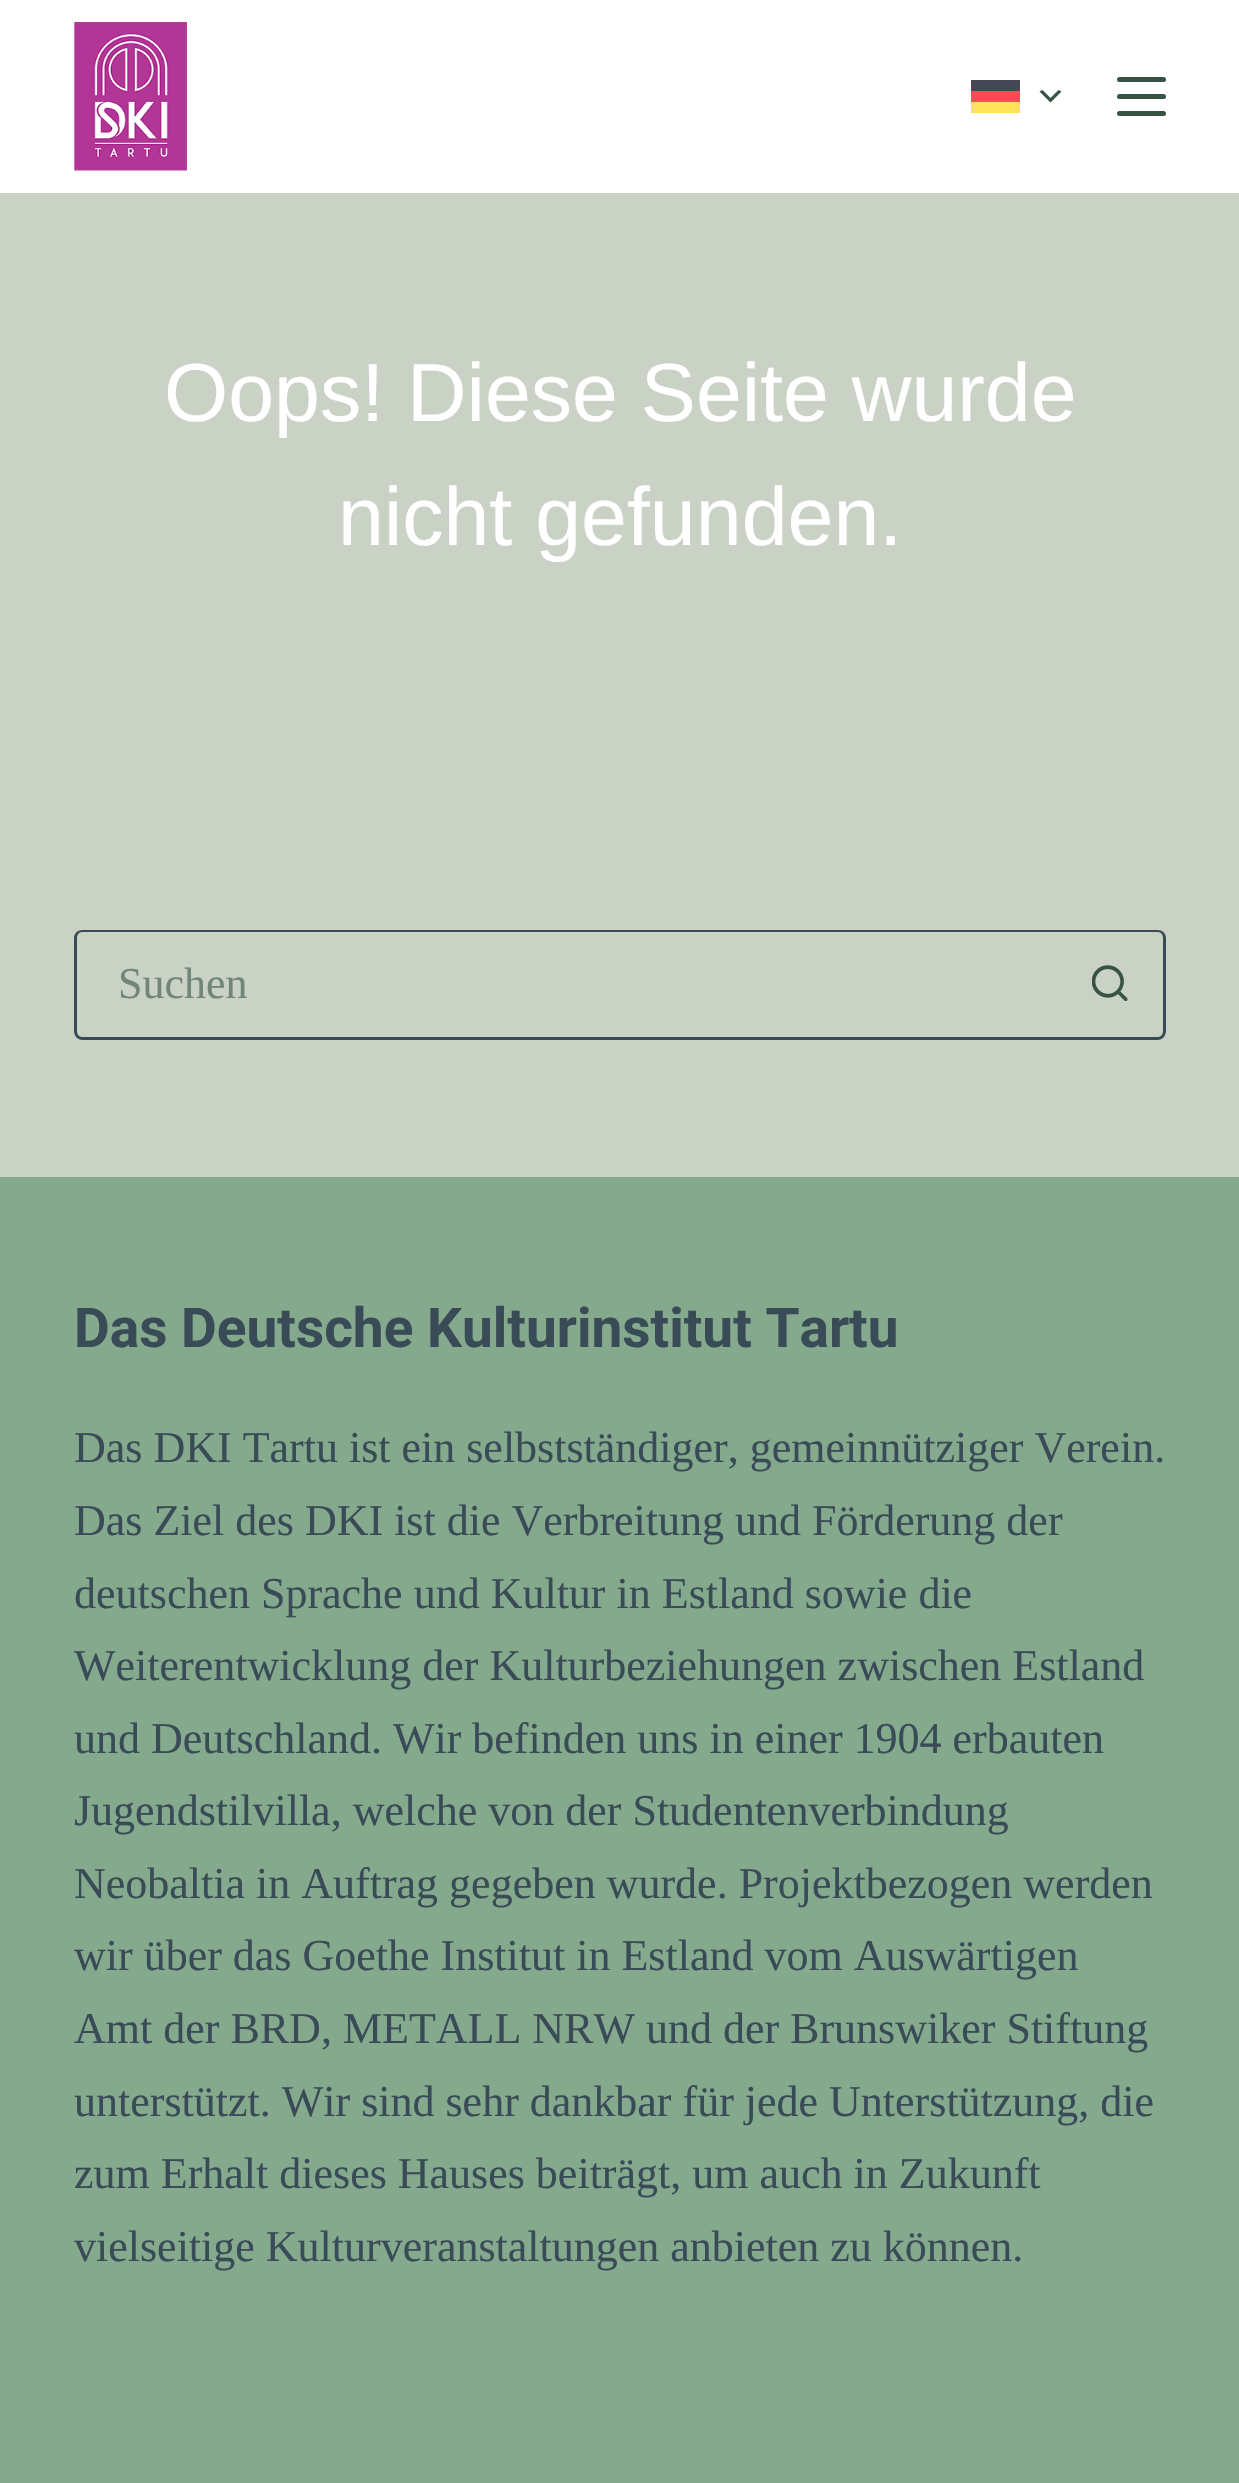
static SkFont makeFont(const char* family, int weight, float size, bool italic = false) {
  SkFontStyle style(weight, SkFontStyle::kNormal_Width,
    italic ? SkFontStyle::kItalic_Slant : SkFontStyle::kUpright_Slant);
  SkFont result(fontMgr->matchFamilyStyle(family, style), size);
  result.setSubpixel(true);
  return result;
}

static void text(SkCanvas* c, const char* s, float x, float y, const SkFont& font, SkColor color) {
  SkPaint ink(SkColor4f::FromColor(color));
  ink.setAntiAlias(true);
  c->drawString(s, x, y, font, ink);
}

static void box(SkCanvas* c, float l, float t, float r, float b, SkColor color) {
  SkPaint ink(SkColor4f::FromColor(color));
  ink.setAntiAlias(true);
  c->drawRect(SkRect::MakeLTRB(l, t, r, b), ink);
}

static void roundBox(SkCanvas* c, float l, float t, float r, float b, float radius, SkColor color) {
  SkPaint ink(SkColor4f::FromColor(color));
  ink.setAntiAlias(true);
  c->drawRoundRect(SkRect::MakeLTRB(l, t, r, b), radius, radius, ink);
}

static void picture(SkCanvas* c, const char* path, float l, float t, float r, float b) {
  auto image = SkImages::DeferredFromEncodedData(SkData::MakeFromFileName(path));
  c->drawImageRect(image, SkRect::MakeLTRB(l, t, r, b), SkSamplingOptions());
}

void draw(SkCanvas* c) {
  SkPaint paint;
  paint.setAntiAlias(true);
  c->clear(0xffcad2c5);
  box(c, 0, 0, 1239, 193, 0xffffffff);
  picture(c, "img_01.png", 74, 22, 187, 171);
  box(c, 971, 91, 1020, 102, 0xffff4b55);
  box(c, 971, 102, 1020, 113, 0xffffe15a);
  box(c, 971, 80, 1020, 91, 0xff464655);
  paint.setColor(0xff385344);
  c->drawPath(SkPathBuilder().moveTo(1042.5f, 90).lineTo(1050.5f, 98).lineTo(1058.5f, 90).lineTo(1061.5f, 91.5f).lineTo(1050.5f, 102.5f).lineTo(1039.5f, 91.5f).close().detach(), paint);
  roundBox(c, 1117, 77, 1166, 82, 2.5f, 0xff385344);
  roundBox(c, 1117, 94, 1166, 99, 2.5f, 0xff385344);
  roundBox(c, 1117, 111, 1166, 116, 2.5f, 0xff385344);
  SkFont face1 = makeFont("Liberation Sans", 400, 82.5f);
  text(c, "Oops! Diese Seite wurde", 164, 421, face1, 0xffffffff);
  text(c, "nicht gefunden.", 338, 545, face1, 0xffffffff);
  paint.setColor(0xff384b56);
  c->drawPath(SkPathBuilder(SkPathFillType::kEvenOdd).moveTo(82, 930).lineTo(1056, 930).lineTo(1056, 1040).lineTo(82, 1040).cubicTo(78, 1040, 74, 1036, 74, 1031).lineTo(74, 938).cubicTo(74, 933, 78, 930, 82, 930).close().moveTo(82, 932).lineTo(1056, 932).lineTo(1056, 1037).lineTo(82, 1037).cubicTo(79, 1037, 77, 1034, 77, 1031).lineTo(77, 938).cubicTo(77, 935, 79, 932, 82, 932).close().detach(), paint);
  SkFont face2 = makeFont("Liberation Serif", 400, 44);
  text(c, "Suchen", 118, 998, face2, 0xff728678);
  c->drawPath(SkPathBuilder(SkPathFillType::kEvenOdd).moveTo(1056, 930).lineTo(1158, 930).cubicTo(1162, 930, 1166, 933, 1166, 938).lineTo(1166, 1031).cubicTo(1166, 1036, 1162, 1040, 1158, 1040).lineTo(1056, 1040).close().moveTo(1056, 932).lineTo(1158, 932).cubicTo(1161, 932, 1163, 935, 1163, 938).lineTo(1163, 1031).cubicTo(1163, 1034, 1161, 1037, 1158, 1037).lineTo(1056, 1037).close().detach(), paint);
  picture(c, "img_02.png", 1092, 965, 1128, 1001);
  box(c, 0, 1177, 1239, 2483, 0xff84a98c);
  SkFont face3 = makeFont("Roboto", 700, 55);
  text(c, "Das Deutsche Kulturinstitut Tartu", 74, 1347, face3, 0xff384b56);
  text(c, "Das DKI Tartu ist ein selbstständiger, gemeinnütziger Verein.", 74, 1462, face2, 0xff384b56);
  text(c, "Das Ziel des DKI ist die Verbreitung und Förderung der", 74, 1535, face2, 0xff384b56);
  text(c, "deutschen Sprache und Kultur in Estland sowie die", 74, 1608, face2, 0xff384b56);
  text(c, "Weiterentwicklung der Kulturbeziehungen zwischen Estland", 74, 1680, face2, 0xff384b56);
  text(c, "und Deutschland. Wir befinden uns in einer 1904 erbauten", 74, 1753, face2, 0xff384b56);
  text(c, "Jugendstilvilla, welche von der Studentenverbindung", 74, 1825, face2, 0xff384b56);
  text(c, "Neobaltia in Auftrag gegeben wurde. Projektbezogen werden", 74, 1898, face2, 0xff384b56);
  text(c, "wir über das Goethe Institut in Estland vom Auswärtigen", 74, 1970, face2, 0xff384b56);
  text(c, "Amt der BRD, METALL NRW und der Brunswiker Stiftung", 74, 2043, face2, 0xff384b56);
  text(c, "unterstützt. Wir sind sehr dankbar für jede Unterstützung, die", 74, 2116, face2, 0xff384b56);
  text(c, "zum Erhalt dieses Hauses beiträgt, um auch in Zukunft", 74, 2188, face2, 0xff384b56);
  text(c, "vielseitige Kulturveranstaltungen anbieten zu können.", 74, 2261, face2, 0xff384b56);
}
